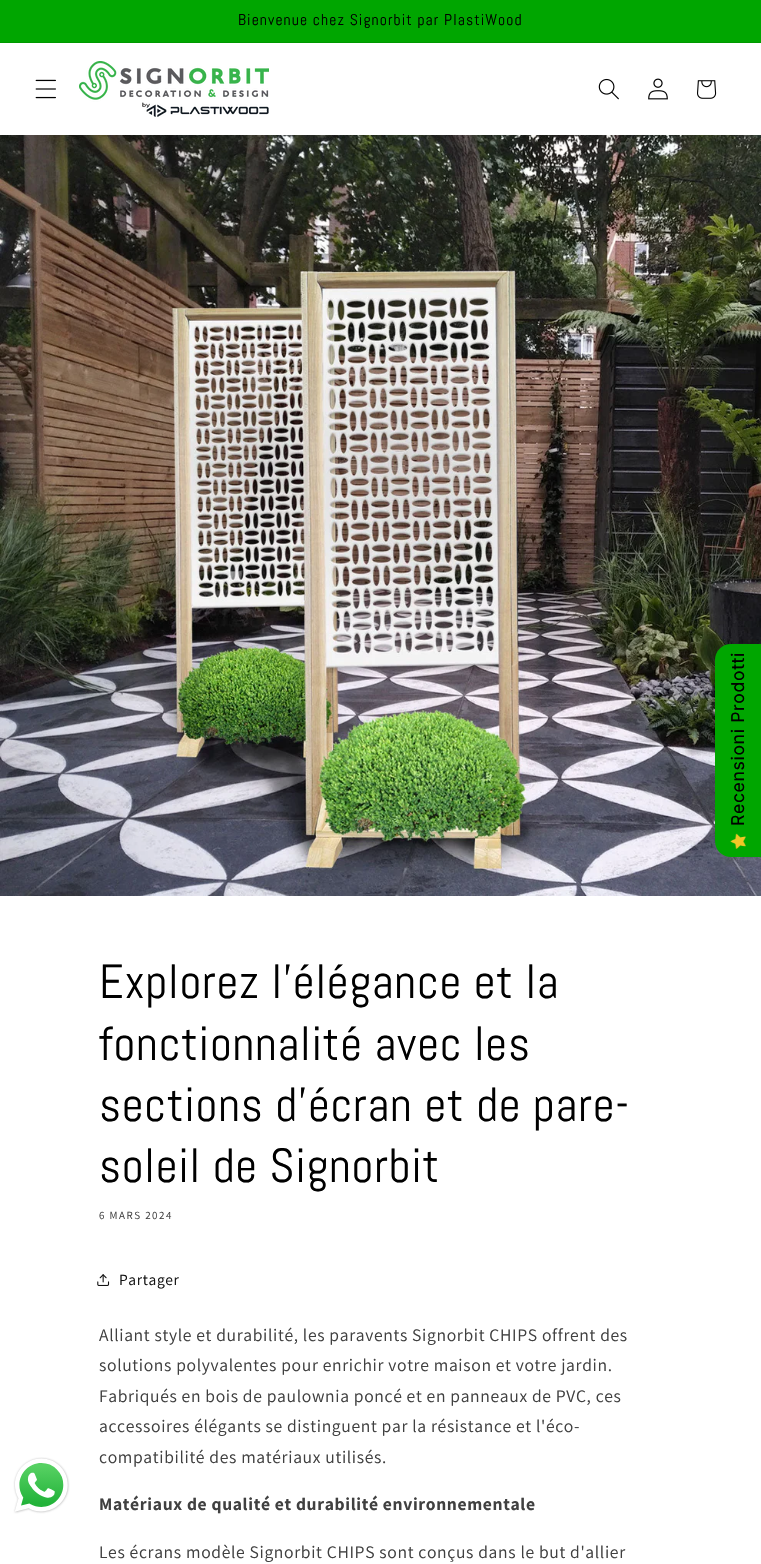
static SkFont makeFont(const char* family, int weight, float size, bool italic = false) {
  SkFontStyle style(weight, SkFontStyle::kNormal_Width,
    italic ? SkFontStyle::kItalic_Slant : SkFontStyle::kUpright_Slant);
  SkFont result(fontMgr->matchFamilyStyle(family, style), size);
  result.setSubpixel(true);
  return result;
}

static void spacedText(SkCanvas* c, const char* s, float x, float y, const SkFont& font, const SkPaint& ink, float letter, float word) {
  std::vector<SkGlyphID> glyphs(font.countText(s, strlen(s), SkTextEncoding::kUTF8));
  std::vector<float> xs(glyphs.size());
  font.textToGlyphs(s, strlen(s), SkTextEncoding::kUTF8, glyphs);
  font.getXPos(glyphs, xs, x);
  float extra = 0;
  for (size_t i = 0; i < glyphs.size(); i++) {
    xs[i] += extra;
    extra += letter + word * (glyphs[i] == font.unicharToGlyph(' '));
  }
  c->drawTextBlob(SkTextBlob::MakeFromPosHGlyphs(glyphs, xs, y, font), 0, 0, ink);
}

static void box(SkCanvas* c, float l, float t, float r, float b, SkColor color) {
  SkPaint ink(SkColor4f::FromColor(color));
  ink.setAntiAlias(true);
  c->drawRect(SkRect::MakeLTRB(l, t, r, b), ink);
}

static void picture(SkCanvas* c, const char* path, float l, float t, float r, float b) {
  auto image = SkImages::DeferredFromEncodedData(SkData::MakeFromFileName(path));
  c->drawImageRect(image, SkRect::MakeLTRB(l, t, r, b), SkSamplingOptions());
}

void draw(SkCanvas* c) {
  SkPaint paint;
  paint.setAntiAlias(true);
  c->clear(0xffffffff);
  box(c, 0, 0, 761, 42, 0xff00a600);
  box(c, 0, 42, 761, 43, 0xff009900);
  SkFont face1 = makeFont("Abel", 400, 15.6f);
  paint.setColor(0xff000000);
  spacedText(c, "Bienvenue chez Signorbit par PlastiWood", 238, 25, face1, paint, 1.1f, 0);
  picture(c, "img_01.png", 35, 79, 56, 99);
  picture(c, "img_02.png", 79, 61, 269, 117);
  picture(c, "img_03.png", 598, 78, 619, 100);
  picture(c, "img_04.png", 648, 78, 668, 100);
  picture(c, "img_05.png", 697, 80, 717, 99);
  picture(c, "img_08.png", 0, 135, 761, 896);
  paint.setColor(0xff00a600);
  c->drawPath(SkPathBuilder().moveTo(715, 841).lineTo(715, 660).cubicTo(715, 651, 722, 644, 731, 644).lineTo(761, 644).lineTo(761, 857).lineTo(731, 857).cubicTo(722, 857, 715, 850, 715, 841).close().detach(), paint);
  SkFont face2 = makeFont("Inter", 400, 17.6f);
  paint.setColor(0xff000000);
  c->save();
  c->rotate(-90, 744, 826);
  spacedText(c, "Recensioni Prodotti", 744, 826, face2, paint, 0.65f, 0);
  c->restore();
  picture(c, "img_06.png", 730, 833, 746, 849);
  picture(c, "img_07.png", 13, 1457, 70, 1514);
  SkFont face3 = makeFont("Abel", 400, 48);
  spacedText(c, "Explorez l'élégance et la", 99, 998, face3, paint, 0.75f, 0);
  spacedText(c, "fonctionnalité avec les", 99, 1060, face3, paint, 0.75f, 0);
  spacedText(c, "sections d'écran et de pare-", 99, 1121, face3, paint, 0.75f, 0);
  spacedText(c, "soleil de Signorbit", 99, 1182, face3, paint, 0.75f, 0);
  SkFont face4 = makeFont("Assistant", 400, 11);
  paint.setColor(0xff404040);
  spacedText(c, "6 MARS 2024", 99, 1219, face4, paint, 1.5f, 0);
  picture(c, "img_09.png", 97, 1274, 110, 1286);
  SkFont face5 = makeFont("Assistant", 400, 15.5f);
  paint.setColor(0xff121212);
  spacedText(c, "Partager", 119, 1285, face5, paint, 0.65f, 0);
  SkFont face6 = makeFont("Assistant", 400, 17.6f);
  paint.setColor(0xff404040);
  spacedText(c, "Alliant style et durabilité, les paravents Signorbit CHIPS offrent des", 99, 1341, face6, paint, 0.65f, 0);
  spacedText(c, "solutions polyvalentes pour enrichir votre maison et votre jardin.", 99, 1371, face6, paint, 0.65f, 0);
  spacedText(c, "Fabriqués en bois de paulownia poncé et en panneaux de PVC, ces", 99, 1402, face6, paint, 0.65f, 0);
  spacedText(c, "accessoires élégants se distinguent par la résistance et l'éco-", 99, 1432, face6, paint, 0.65f, 0);
  spacedText(c, "compatibilité des matériaux utilisés.", 99, 1463, face6, paint, 0.65f, 0);
  SkFont face7 = makeFont("Assistant", 700, 17.6f);
  spacedText(c, "Matériaux de qualité et durabilité environnementale", 99, 1510, face7, paint, 0.65f, 0);
  spacedText(c, "Les écrans modèle Signorbit CHIPS sont conçus dans le but d'allier", 99, 1558, face6, paint, 0.65f, 0);
}
